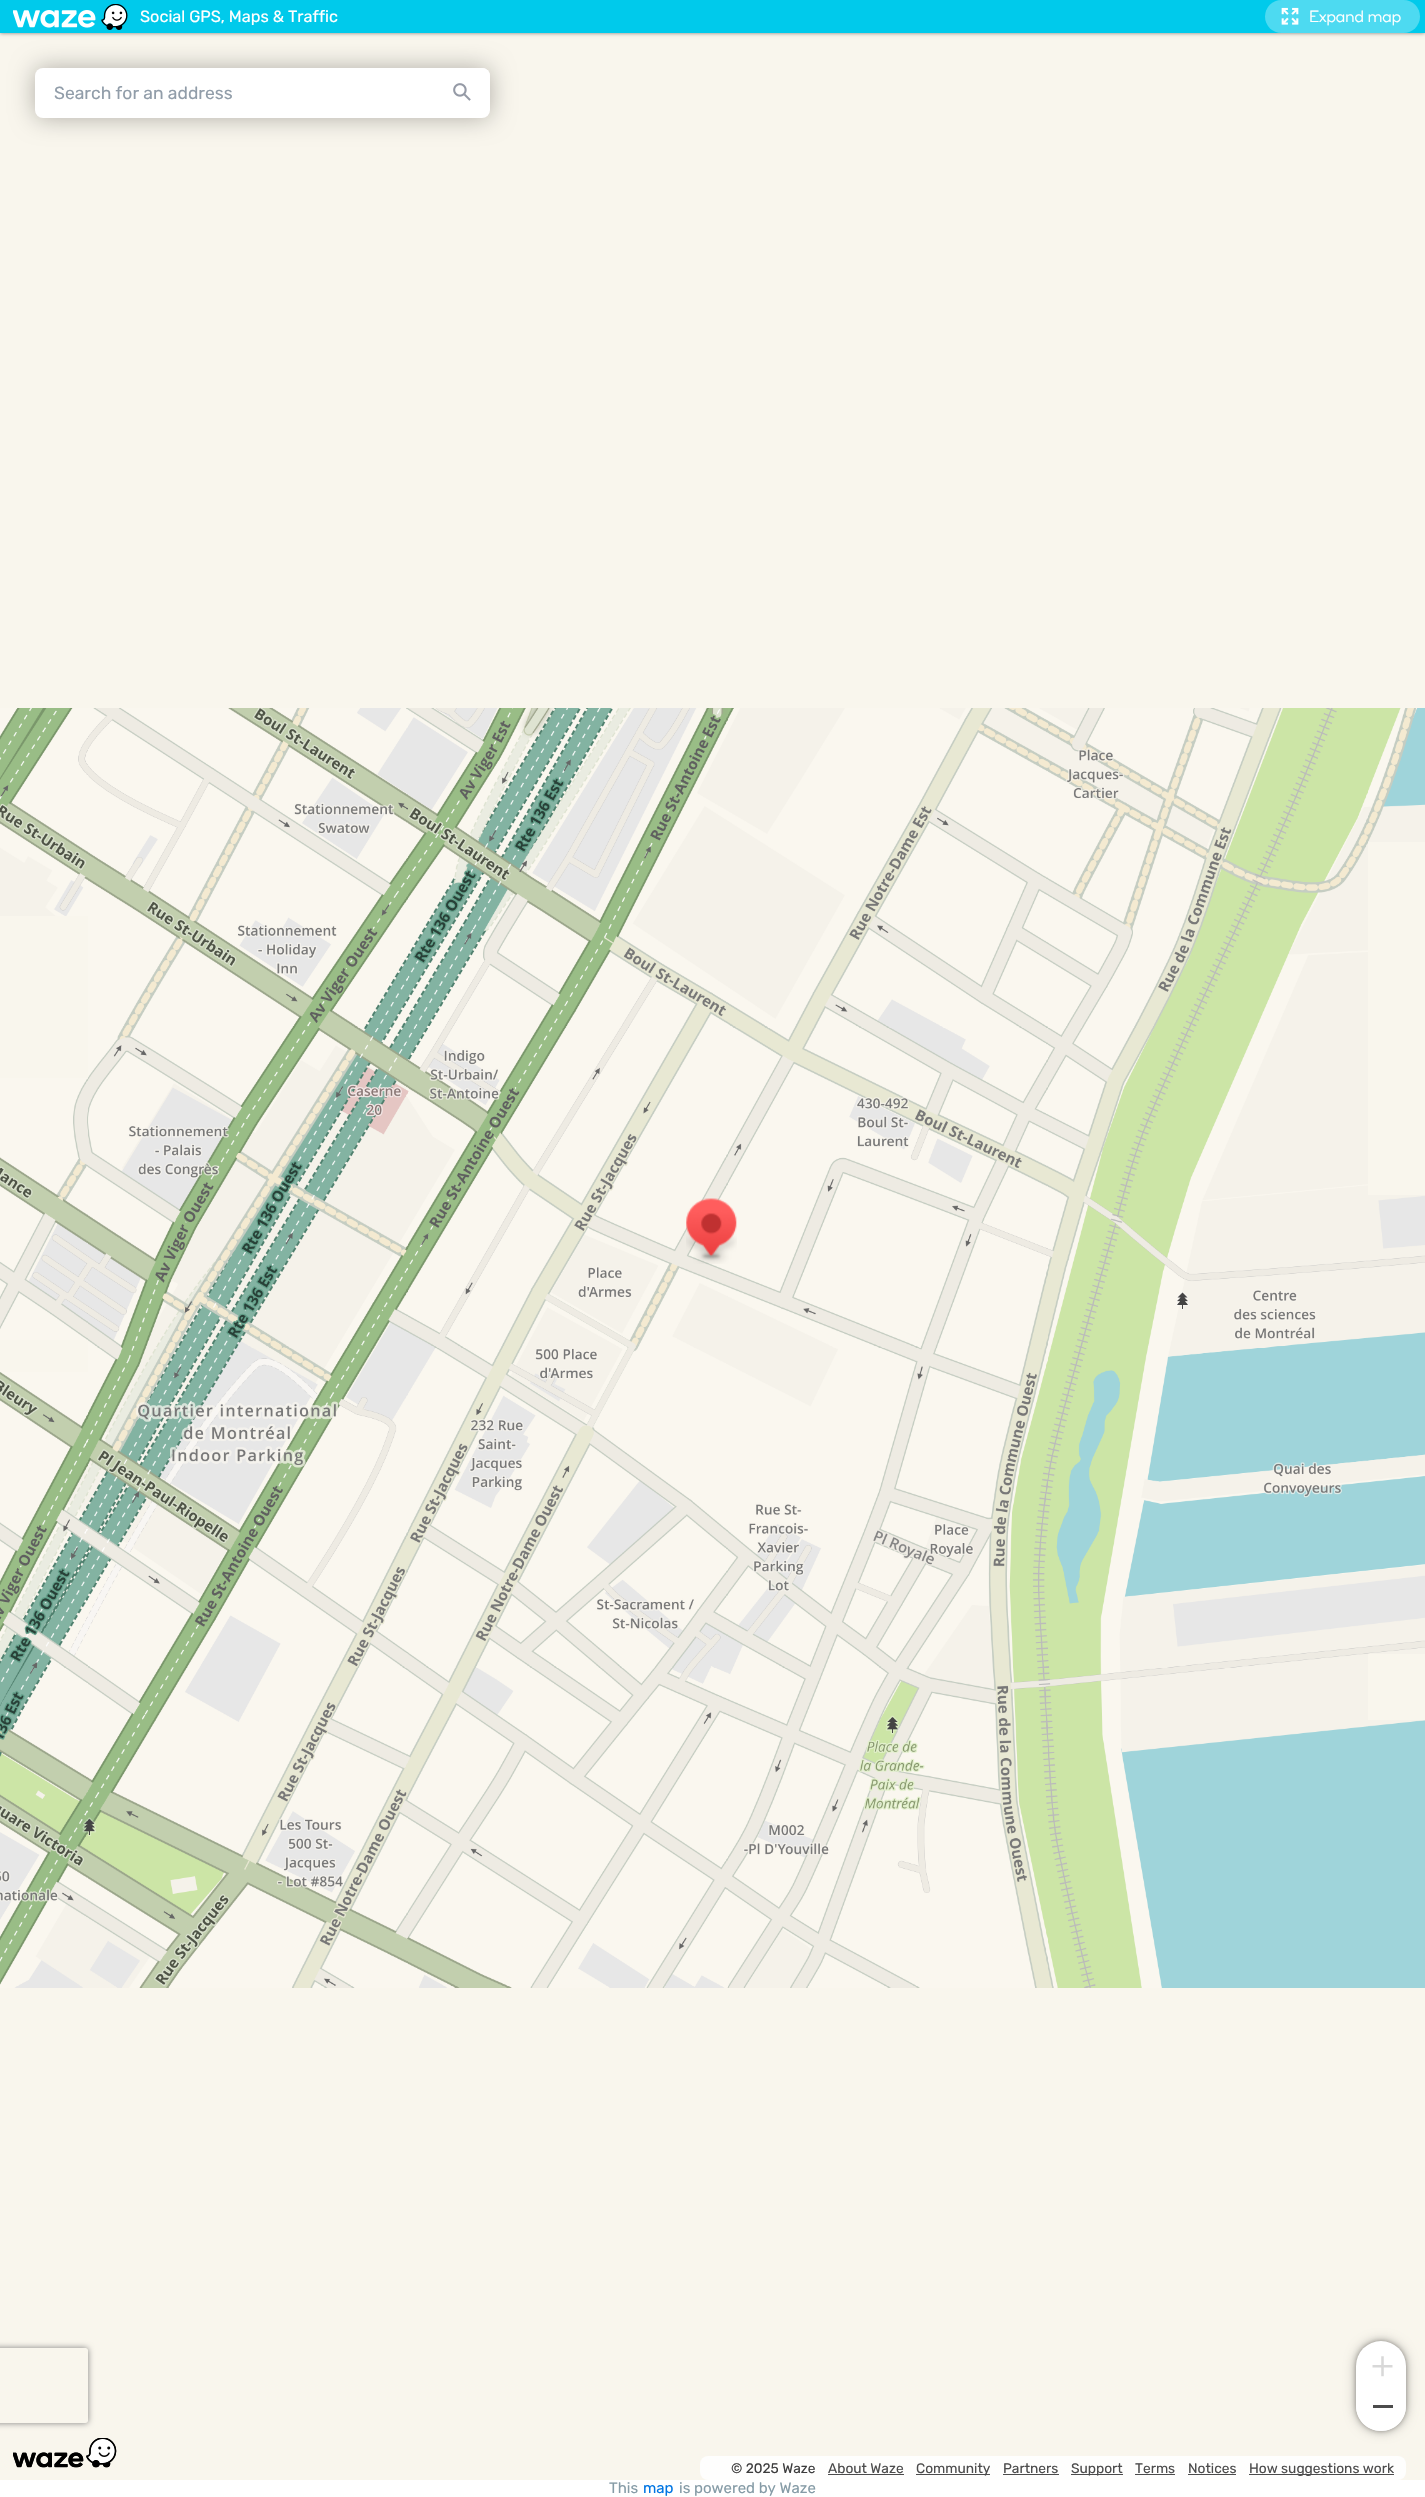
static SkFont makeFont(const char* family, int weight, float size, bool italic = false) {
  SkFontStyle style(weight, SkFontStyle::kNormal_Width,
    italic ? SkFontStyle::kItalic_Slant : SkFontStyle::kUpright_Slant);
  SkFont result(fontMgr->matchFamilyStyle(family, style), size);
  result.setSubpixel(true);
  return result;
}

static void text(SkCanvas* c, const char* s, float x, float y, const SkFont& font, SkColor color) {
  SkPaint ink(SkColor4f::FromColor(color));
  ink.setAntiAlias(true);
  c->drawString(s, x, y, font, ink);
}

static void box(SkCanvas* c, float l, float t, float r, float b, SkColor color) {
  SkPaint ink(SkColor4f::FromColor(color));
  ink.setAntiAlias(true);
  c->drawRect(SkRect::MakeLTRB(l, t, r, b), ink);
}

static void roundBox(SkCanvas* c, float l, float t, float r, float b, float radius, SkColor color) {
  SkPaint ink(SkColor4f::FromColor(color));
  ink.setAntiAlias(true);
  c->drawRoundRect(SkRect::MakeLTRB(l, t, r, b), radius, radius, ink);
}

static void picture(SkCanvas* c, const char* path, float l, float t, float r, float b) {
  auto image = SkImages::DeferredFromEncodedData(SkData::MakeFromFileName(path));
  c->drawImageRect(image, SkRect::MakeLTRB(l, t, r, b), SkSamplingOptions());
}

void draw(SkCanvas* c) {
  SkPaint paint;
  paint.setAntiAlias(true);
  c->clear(0xffffffff);
  box(c, 0, 33, 1425, 2480, 0xfff9f6ed);
  paint.setColor(0x80000000);
  paint.setMaskFilter(SkMaskFilter::MakeBlur(kNormal_SkBlurStyle, 2));
  c->drawRect(SkRect::MakeLTRB(0, 0, 1425, 33), paint);
  paint.setMaskFilter(nullptr);
  paint.setColor(0x4d000000);
  paint.setMaskFilter(SkMaskFilter::MakeBlur(kNormal_SkBlurStyle, 12.5f));
  c->drawRoundRect(SkRect::MakeLTRB(35, 68, 490, 118), 8, 8, paint);
  paint.setMaskFilter(nullptr);
  box(c, 0, 0, 1425, 33, 0xff00caeb);
  picture(c, "img_01.png", 13, 4, 128, 30);
  SkFont face1 = makeFont("Rubik", 400, 16.25f);
  text(c, "Social GPS, Maps & Traffic", 140, 22, face1, 0xffffffff);
  roundBox(c, 1265, 0, 1420, 33, 16.5f, 0xff4ddaf1);
  picture(c, "img_02.png", 1281, 7, 1299, 25);
  SkFont face2 = makeFont("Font", 300, 16.25f);
  text(c, "Expand map", 1309, 22, face2, 0xffffffff);
  c->save();
  c->clipPath(SkPathBuilder(SkPathFillType::kEvenOdd).moveTo(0, 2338).lineTo(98, 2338).lineTo(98, 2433).lineTo(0, 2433).close().moveTo(-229.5f, 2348).lineTo(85.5f, 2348).cubicTo(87, 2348, 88, 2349, 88, 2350.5f).lineTo(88, 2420.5f).cubicTo(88, 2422, 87, 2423, 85.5f, 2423).lineTo(-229.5f, 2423).cubicTo(-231, 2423, -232, 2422, -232, 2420.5f).lineTo(-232, 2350.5f).cubicTo(-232, 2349, -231, 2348, -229.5f, 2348).close().detach(), true);
  paint.setColor(0xff808080);
  paint.setMaskFilter(SkMaskFilter::MakeBlur(kNormal_SkBlurStyle, 3));
  c->drawRoundRect(SkRect::MakeLTRB(-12, 2348, 88, 2423), 2.5f, 2.5f, paint);
  paint.setMaskFilter(nullptr);
  c->restore();
  roundBox(c, 35, 68, 490, 118, 8, 0xffffffff);
  SkFont face3 = makeFont("Rubik", 400, 17.5f);
  text(c, "Search for an address", 54, 99, face3, 0xff919da9);
  {
    const SkColor colors[] = {0x00ffffff, 0xffffffff, 0xffffffff};
    const float stops[] = {0, 0.25f, 1};
    const SkPoint ends[] = {{428, 91}, {490, 91}};
    paint.setShader(SkGradientShader::MakeLinear(ends, colors, stops, 3, SkTileMode::kClamp));
    paint.setAlpha(255);
  }
  c->drawRoundRect(SkRect::MakeLTRB(428, 68, 490, 115), 8, 8, paint);
  picture(c, "img_03.png", 453, 83, 471, 101);
  picture(c, "img_04.png", 13, 2438, 117, 2468);
  paint.setShader(nullptr);
  paint.setColor(0x4d000000);
  paint.setMaskFilter(SkMaskFilter::MakeBlur(kNormal_SkBlurStyle, 6));
  c->drawRoundRect(SkRect::MakeLTRB(1356, 2341, 1406, 2431), 25, 25, paint);
  paint.setMaskFilter(nullptr);
  paint.setMaskFilter(SkMaskFilter::MakeBlur(kNormal_SkBlurStyle, 2.5f));
  c->drawRoundRect(SkRect::MakeLTRB(1356, 2341, 1406, 2431), 25, 25, paint);
  paint.setMaskFilter(nullptr);
  roundBox(c, 1356, 2341, 1406, 2431, 25, 0xffffffff);
  picture(c, "img_05.png", 1372, 2356, 1393, 2377);
  paint.setColor(0xffffffff);
  c->drawPath(SkPathBuilder().moveTo(1356, 2386).lineTo(1406, 2386).lineTo(1406, 2406).cubicTo(1406, 2420, 1395, 2431, 1381, 2431).cubicTo(1367, 2431, 1356, 2420, 1356, 2406).close().detach(), paint);
  box(c, 1373, 2405, 1393, 2408, 0xff4c4c4c);
  roundBox(c, 700, 2456, 1406, 2480, 8, 0xfffefefd);
  SkFont face4 = makeFont("Rubik", 400, 13.75f);
  text(c, "© 2025 Waze", 731, 2473, face4, 0xff3d3d3d);
  text(c, "About Waze", 828, 2473, face4, 0xff4c4c4c);
  box(c, 828, 2474, 904, 2475, 0xff4c4c4c);
  box(c, 916, 2474, 990, 2475, 0xff4c4c4c);
  text(c, "Community", 916, 2473, face4, 0xff4c4c4c);
  text(c, "Partners", 1003, 2473, face4, 0xff4c4c4c);
  box(c, 1003, 2474, 1059, 2475, 0xff4c4c4c);
  box(c, 1071, 2474, 1123, 2475, 0xff4c4c4c);
  text(c, "Support", 1071, 2473, face4, 0xff4c4c4c);
  text(c, "Terms", 1135, 2473, face4, 0xff4c4c4c);
  box(c, 1135, 2474, 1175, 2475, 0xff4c4c4c);
  text(c, "Notices", 1188, 2473, face4, 0xff4c4c4c);
  box(c, 1188, 2474, 1236, 2475, 0xff4c4c4c);
  box(c, 1249, 2474, 1394, 2475, 0xff4c4c4c);
  text(c, "How suggestions work", 1249, 2473, face4, 0xff4c4c4c);
  picture(c, "img_06.png", 0, 708, 88, 916);
  picture(c, "img_07.png", 88, 708, 408, 1028);
  picture(c, "img_08.png", 408, 708, 728, 1028);
  picture(c, "img_09.png", 728, 708, 1048, 1028);
  picture(c, "img_10.png", 1048, 708, 1368, 1028);
  picture(c, "img_11.png", 1368, 708, 1425, 842);
  picture(c, "img_12.png", 0, 1078, 88, 1340);
  picture(c, "img_13.png", 88, 1028, 408, 1348);
  picture(c, "img_14.png", 408, 1028, 728, 1348);
  picture(c, "img_15.png", 728, 1028, 1048, 1348);
  picture(c, "img_16.png", 1048, 1028, 1368, 1348);
  picture(c, "img_17.png", 1368, 1195, 1425, 1348);
  picture(c, "img_18.png", 0, 1372, 88, 1668);
  picture(c, "img_19.png", 88, 1348, 408, 1668);
  picture(c, "img_20.png", 408, 1348, 728, 1668);
  picture(c, "img_21.png", 728, 1348, 1048, 1668);
  picture(c, "img_22.png", 1048, 1348, 1368, 1668);
  picture(c, "img_23.png", 1368, 1348, 1425, 1654);
  picture(c, "img_24.png", 0, 1668, 88, 1988);
  picture(c, "img_25.png", 88, 1668, 408, 1988);
  picture(c, "img_26.png", 408, 1668, 728, 1988);
  picture(c, "img_27.png", 728, 1668, 1048, 1988);
  picture(c, "img_28.png", 1048, 1668, 1368, 1988);
  picture(c, "img_29.png", 1368, 1720, 1425, 1988);
  picture(c, "img_30.png", 686, 1198, 737, 1264);
  SkFont face5 = makeFont("Rubik", 400, 15);
  text(c, "This", 609, 2493, face5, 0xff859ba6);
  text(c, "map", 643, 2493, face5, 0xff0075e3);
  text(c, "is powered by Waze", 679, 2493, face5, 0xff859ba6);
}
